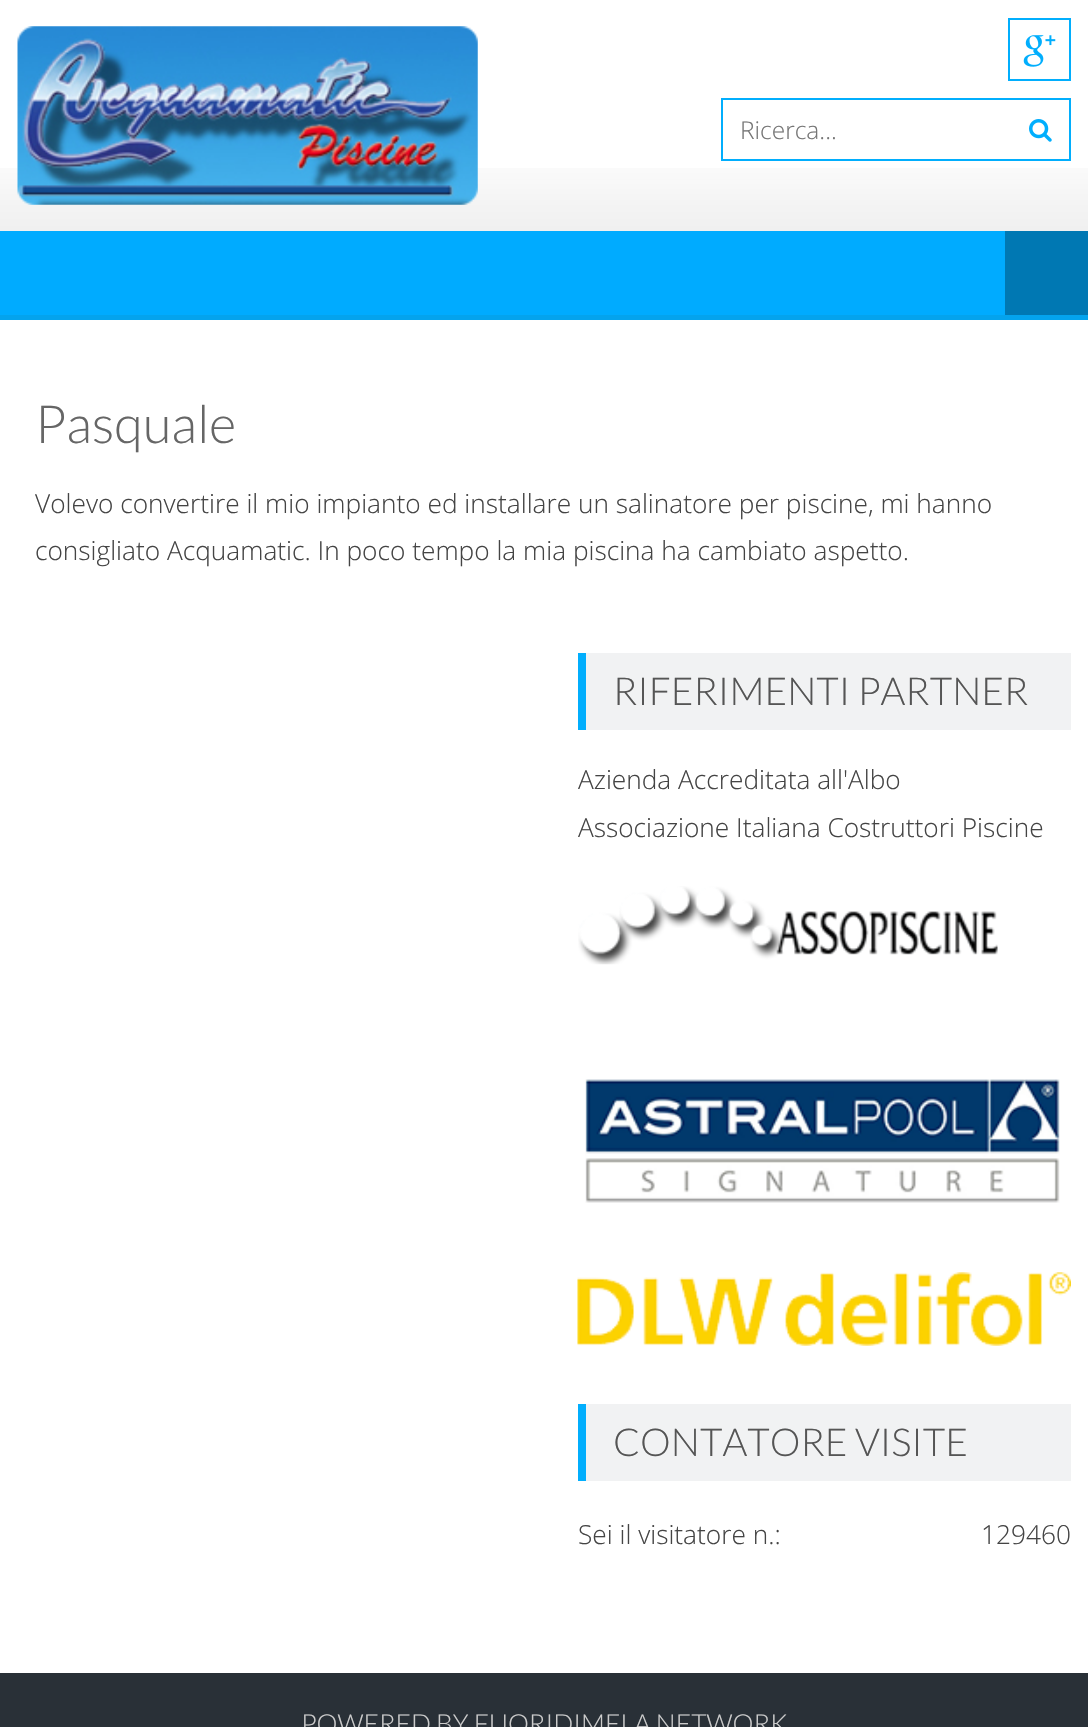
static SkFont makeFont(const char* family, int weight, float size, bool italic = false) {
  SkFontStyle style(weight, SkFontStyle::kNormal_Width,
    italic ? SkFontStyle::kItalic_Slant : SkFontStyle::kUpright_Slant);
  SkFont result(fontMgr->matchFamilyStyle(family, style), size);
  result.setSubpixel(true);
  return result;
}

static void text(SkCanvas* c, const char* s, float x, float y, const SkFont& font, SkColor color) {
  SkPaint ink(SkColor4f::FromColor(color));
  ink.setAntiAlias(true);
  c->drawString(s, x, y, font, ink);
}

static void box(SkCanvas* c, float l, float t, float r, float b, SkColor color) {
  SkPaint ink(SkColor4f::FromColor(color));
  ink.setAntiAlias(true);
  c->drawRect(SkRect::MakeLTRB(l, t, r, b), ink);
}

static void picture(SkCanvas* c, const char* path, float l, float t, float r, float b) {
  auto image = SkImages::DeferredFromEncodedData(SkData::MakeFromFileName(path));
  c->drawImageRect(image, SkRect::MakeLTRB(l, t, r, b), SkSamplingOptions());
}

void draw(SkCanvas* c) {
  SkPaint paint;
  paint.setAntiAlias(true);
  c->clear(0xffffffff);
  picture(c, "img_01.png", 0, 168, 1088, 231);
  picture(c, "img_02.png", 17, 26, 478, 205);
  paint.setStyle(SkPaint::kStroke_Style);
  paint.setStrokeWidth(2);
  paint.setColor(0xff01aefd);
  c->drawRect(SkRect::MakeLTRB(1009, 19, 1070, 80), paint);
  picture(c, "img_03.png", 1023, 35, 1056, 67);
  c->drawRect(SkRect::MakeLTRB(722, 99, 1070, 160), paint);
  SkFont face1 = makeFont("Open Sans", 300, 24.5f);
  text(c, "Ricerca...", 740, 139, face1, 0xff757575);
  picture(c, "img_04.png", 1029, 119, 1052, 142);
  box(c, 0, 231, 1005, 315, 0xff00abff);
  box(c, 0, 315, 1088, 320, 0xff04a3ed);
  box(c, 1005, 231, 1088, 315, 0xff0078b3);
  SkFont face2 = makeFont("Lato", 300, 52.5f);
  text(c, "Pasquale", 35, 443, face2, 0xff666666);
  SkFont face3 = makeFont("Open Sans", 300, 26.25f);
  text(c, "Volevo convertire il mio impianto ed installare un salinatore per piscine, mi hanno", 35, 513, face3, 0xff444444);
  text(c, "consigliato Acquamatic. In poco tempo la mia piscina ha cambiato aspetto.", 35, 560, face3, 0xff444444);
  box(c, 586, 653, 1071, 730, 0xfff1f2f3);
  box(c, 578, 653, 586, 730, 0xff01aefd);
  SkFont face4 = makeFont("Lato", 300, 38.5f);
  text(c, "RIFERIMENTI PARTNER", 613, 705, face4, 0xff555555);
  text(c, "Azienda Accreditata all'Albo", 578, 789, face3, 0xff444444);
  text(c, "Associazione Italiana Costruttori Piscine", 578, 837, face3, 0xff444444);
  picture(c, "img_05.png", 578, 886, 998, 965);
  picture(c, "img_06.png", 585, 1079, 1060, 1203);
  picture(c, "img_07.png", 577, 1272, 1071, 1346);
  box(c, 586, 1404, 1071, 1481, 0xfff1f2f3);
  box(c, 578, 1404, 586, 1481, 0xff01aefd);
  text(c, "CONTATORE VISITE", 613, 1456, face4, 0xff555555);
  text(c, "Sei il visitatore n.:", 578, 1544, face3, 0xff444444);
  text(c, "129460", 981, 1544, face3, 0xff444444);
  box(c, 0, 1673, 1088, 1727, 0xff293037);
  SkFont face5 = makeFont("Lato", 300, 26.25f);
  text(c, "POWERED BY FUORIDIMELA NETWORK", 301, 1733, face5, 0xffcccccc);
}
